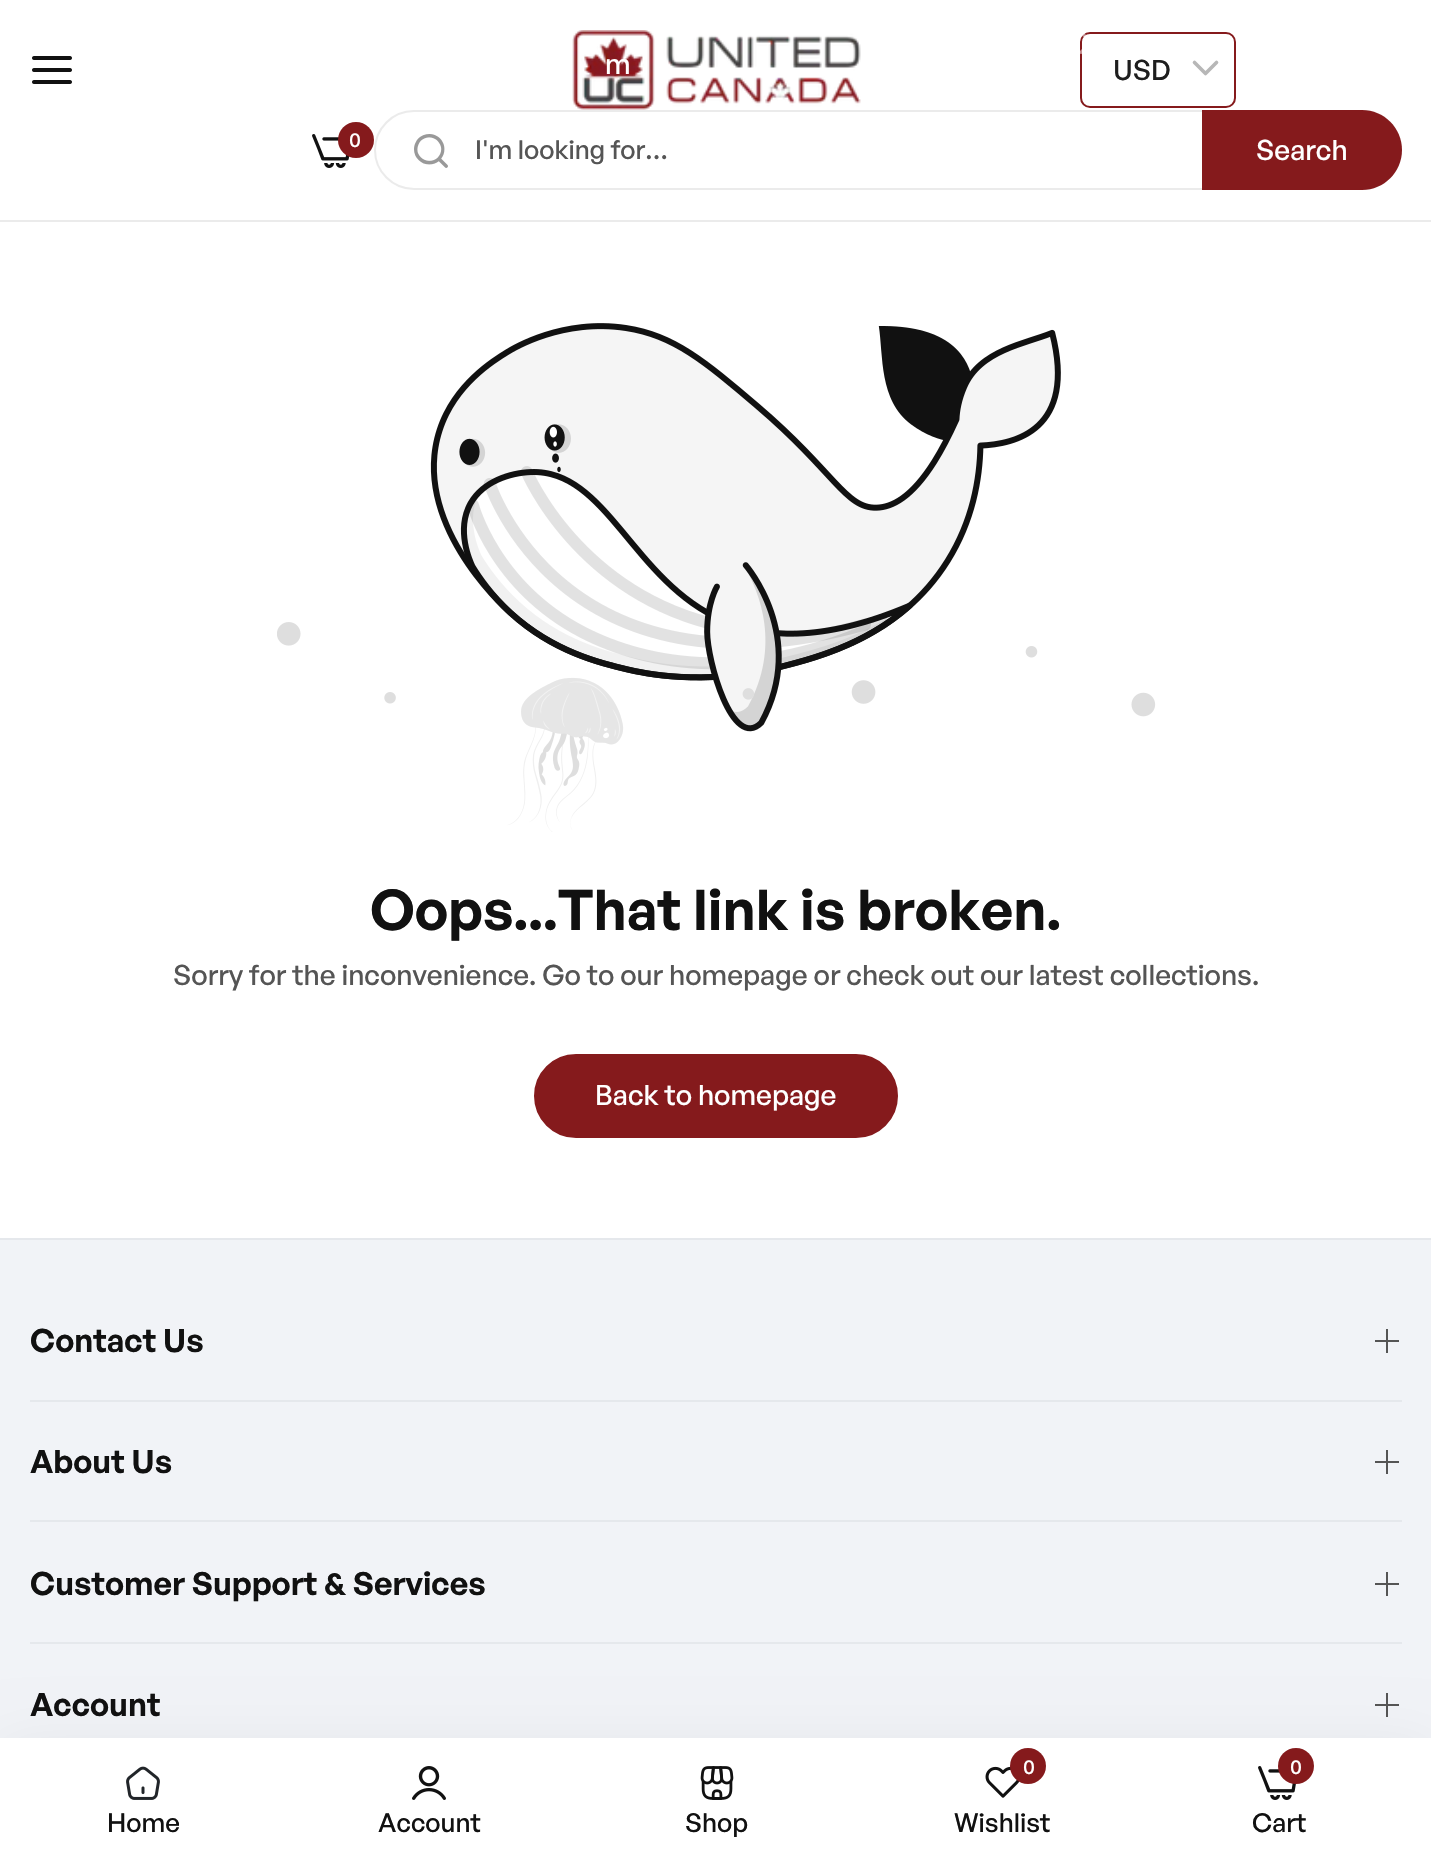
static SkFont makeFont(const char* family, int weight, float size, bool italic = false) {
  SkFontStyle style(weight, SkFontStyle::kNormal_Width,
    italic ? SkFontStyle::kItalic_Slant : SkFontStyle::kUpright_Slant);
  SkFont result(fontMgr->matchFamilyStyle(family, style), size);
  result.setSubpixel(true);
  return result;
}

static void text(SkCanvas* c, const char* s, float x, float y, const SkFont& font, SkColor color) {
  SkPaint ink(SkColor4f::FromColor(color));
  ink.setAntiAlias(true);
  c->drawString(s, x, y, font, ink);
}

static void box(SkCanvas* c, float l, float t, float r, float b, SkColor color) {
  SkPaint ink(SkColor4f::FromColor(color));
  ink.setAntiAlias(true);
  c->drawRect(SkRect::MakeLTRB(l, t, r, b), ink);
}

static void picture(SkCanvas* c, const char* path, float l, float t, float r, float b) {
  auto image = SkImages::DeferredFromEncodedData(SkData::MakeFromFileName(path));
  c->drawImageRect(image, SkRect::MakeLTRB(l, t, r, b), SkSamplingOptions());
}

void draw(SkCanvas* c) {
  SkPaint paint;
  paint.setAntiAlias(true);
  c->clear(0xffffffff);
  paint.setStyle(SkPaint::kStroke_Style);
  paint.setStrokeWidth(2);
  paint.setColor(0xff851a1c);
  c->drawRoundRect(SkRect::MakeLTRB(1081, 33, 1235, 107), 9, 9, paint);
  picture(c, "img_01.png", 1080, 33, 1086, 54);
  picture(c, "img_03.png", 572, 30, 861, 110);
  SkFont face1 = makeFont("General Sans", 500, 28);
  text(c, "m", 605, 74, face1, 0xffffffff);
  box(c, 0, 220, 1431, 222, 0xffebebeb);
  picture(c, "img_02.png", 32, 56, 72, 84);
  text(c, "USD", 1113, 80, face1, 0xff1e1e1e);
  paint.setStrokeWidth(3.6f);
  paint.setStrokeCap(SkPaint::kRound_Cap);
  paint.setStrokeJoin(SkPaint::kRound_Join);
  paint.setColor(0xffb7b7b7);
  c->drawPath(SkPathBuilder().moveTo(1194.5f, 62.5f).lineTo(1205.5f, 73.5f).lineTo(1216.5f, 62.5f).detach(), paint);
  picture(c, "img_04.png", 312, 134, 350, 168);
  paint.setStyle(SkPaint::kFill_Style);
  paint.setColor(0xff851a1c);
  c->drawCircle(356, 140, 18, paint);
  SkFont face2 = makeFont("General Sans", 500, 20);
  text(c, "0", 349, 147, face2, 0xffffffff);
  paint.setStyle(SkPaint::kStroke_Style);
  paint.setStrokeWidth(2);
  paint.setStrokeCap(SkPaint::kButt_Cap);
  paint.setStrokeJoin(SkPaint::kMiter_Join);
  paint.setColor(0xffebebeb);
  c->drawRoundRect(SkRect::MakeLTRB(375, 111, 1401, 189), 39, 39, paint);
  picture(c, "img_05.png", 414, 134, 448, 168);
  SkFont face3 = makeFont("General Sans", 500, 26);
  text(c, "I'm looking for…", 475, 159, face3, 0xff555555);
  paint.setStyle(SkPaint::kFill_Style);
  paint.setColor(0xff851a1c);
  c->drawPath(SkPathBuilder().moveTo(1202, 110).lineTo(1362, 110).cubicTo(1384, 110, 1402, 128, 1402, 150).cubicTo(1402, 172, 1384, 190, 1362, 190).lineTo(1202, 190).close().detach(), paint);
  text(c, "Search", 1256, 160, face1, 0xffffffff);
  picture(c, "img_06.png", 277, 323, 1156, 832);
  SkFont face4 = makeFont("General Sans", 600, 56);
  text(c, "Oops...That link is broken.", 370, 930, face4, 0xff111111);
  text(c, "Sorry for the inconvenience. Go to our homepage or check out our latest collections.", 173, 985, face1, 0xff555555);
  c->drawRoundRect(SkRect::MakeLTRB(535, 1055, 897, 1137), 41, 41, paint);
  paint.setStyle(SkPaint::kStroke_Style);
  c->drawRoundRect(SkRect::MakeLTRB(535, 1055, 897, 1137), 41, 41, paint);
  text(c, "Back to homepage", 595, 1105, face1, 0xffffffff);
  box(c, 0, 1240, 1431, 1738, 0xfff1f3f7);
  box(c, 0, 1238, 1431, 1240, 0xffe5e8ec);
  SkFont face5 = makeFont("General Sans", 600, 32);
  text(c, "Contact Us", 30, 1352, face5, 0xff111111);
  box(c, 1386, 1329, 1388, 1353, 0xff555555);
  box(c, 1375, 1340, 1399, 1342, 0xff555555);
  box(c, 30, 1400, 1402, 1402, 0xffe5e8ec);
  text(c, "About Us", 30, 1473, face5, 0xff111111);
  box(c, 1386, 1450, 1388, 1474, 0xff555555);
  box(c, 1375, 1461, 1399, 1463, 0xff555555);
  box(c, 30, 1520, 1402, 1522, 0xffe5e8ec);
  text(c, "Customer Support & Services", 30, 1595, face5, 0xff111111);
  box(c, 1386, 1572, 1388, 1596, 0xff555555);
  box(c, 1375, 1583, 1399, 1585, 0xff555555);
  box(c, 30, 1642, 1402, 1644, 0xffe5e8ec);
  text(c, "Account", 30, 1716, face5, 0xff111111);
  box(c, 1386, 1693, 1388, 1717, 0xff555555);
  box(c, 1375, 1704, 1399, 1706, 0xff555555);
  paint.setStyle(SkPaint::kFill_Style);
  paint.setColor(0x0f000000);
  paint.setMaskFilter(SkMaskFilter::MakeBlur(kNormal_SkBlurStyle, 30));
  c->drawRect(SkRect::MakeLTRB(0, 1748, 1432, 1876), paint);
  paint.setMaskFilter(nullptr);
  box(c, 0, 1738, 1431, 1866, 0xffffffff);
  picture(c, "img_07.png", 126, 1766, 160, 1800);
  text(c, "Home", 107, 1832, face3, 0xff111111);
  picture(c, "img_08.png", 412, 1766, 446, 1800);
  text(c, "Account", 378, 1832, face3, 0xff111111);
  picture(c, "img_09.png", 700, 1766, 734, 1800);
  text(c, "Shop", 685, 1832, face3, 0xff111111);
  picture(c, "img_10.png", 985, 1766, 1020, 1798);
  paint.setColor(0xff851a1c);
  c->drawCircle(1028, 1766, 18, paint);
  text(c, "0", 1023, 1774, face2, 0xffffffff);
  text(c, "Wishlist", 954, 1832, face3, 0xff111111);
  picture(c, "img_04.png", 1258, 1766, 1296, 1800);
  c->drawCircle(1296, 1766, 18, paint);
  text(c, "0", 1290, 1774, face2, 0xffffffff);
  text(c, "Cart", 1252, 1832, face3, 0xff111111);
}
